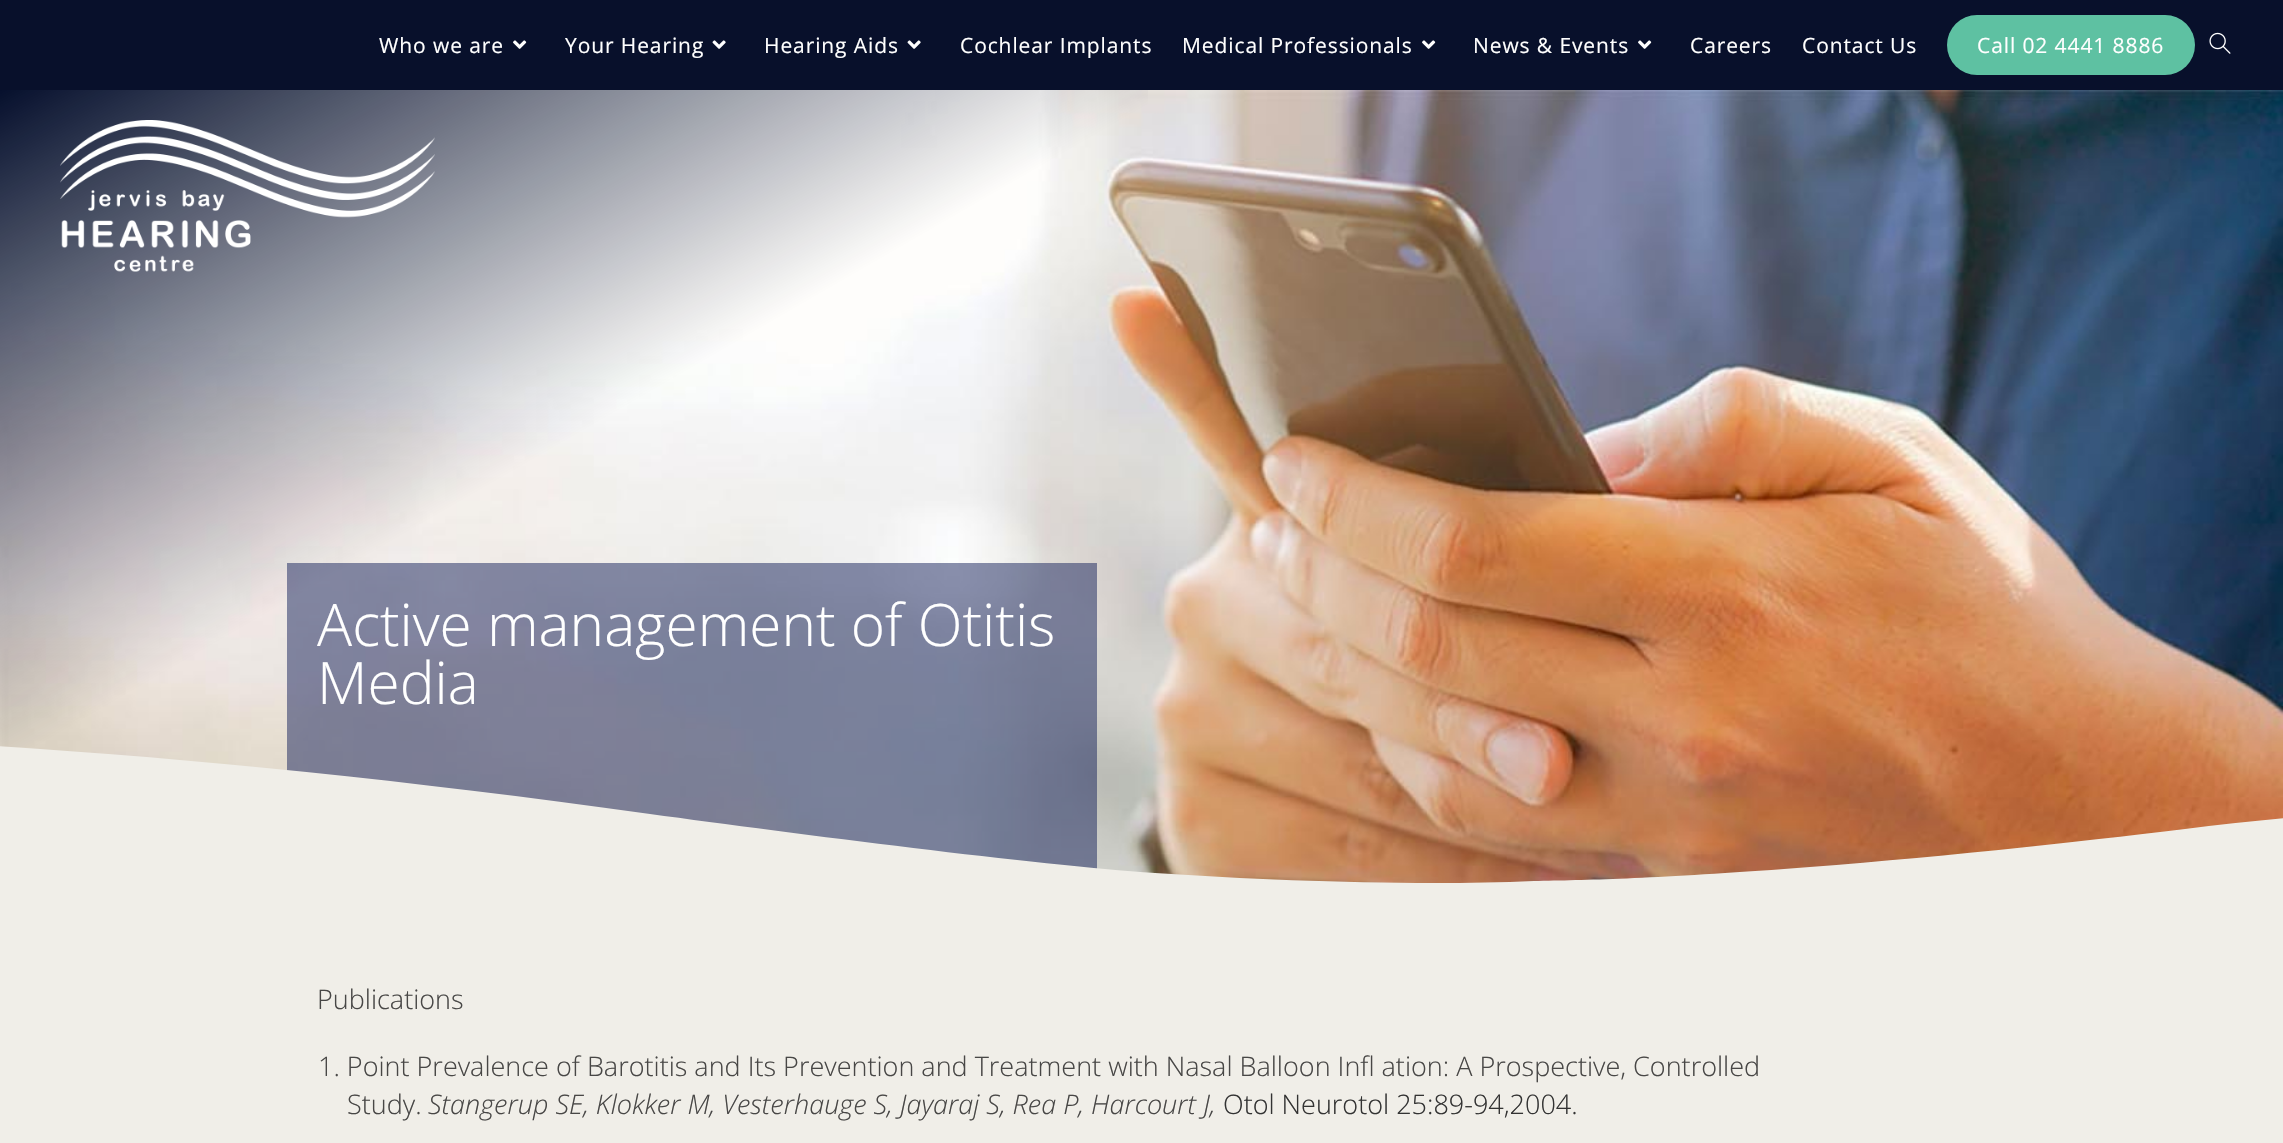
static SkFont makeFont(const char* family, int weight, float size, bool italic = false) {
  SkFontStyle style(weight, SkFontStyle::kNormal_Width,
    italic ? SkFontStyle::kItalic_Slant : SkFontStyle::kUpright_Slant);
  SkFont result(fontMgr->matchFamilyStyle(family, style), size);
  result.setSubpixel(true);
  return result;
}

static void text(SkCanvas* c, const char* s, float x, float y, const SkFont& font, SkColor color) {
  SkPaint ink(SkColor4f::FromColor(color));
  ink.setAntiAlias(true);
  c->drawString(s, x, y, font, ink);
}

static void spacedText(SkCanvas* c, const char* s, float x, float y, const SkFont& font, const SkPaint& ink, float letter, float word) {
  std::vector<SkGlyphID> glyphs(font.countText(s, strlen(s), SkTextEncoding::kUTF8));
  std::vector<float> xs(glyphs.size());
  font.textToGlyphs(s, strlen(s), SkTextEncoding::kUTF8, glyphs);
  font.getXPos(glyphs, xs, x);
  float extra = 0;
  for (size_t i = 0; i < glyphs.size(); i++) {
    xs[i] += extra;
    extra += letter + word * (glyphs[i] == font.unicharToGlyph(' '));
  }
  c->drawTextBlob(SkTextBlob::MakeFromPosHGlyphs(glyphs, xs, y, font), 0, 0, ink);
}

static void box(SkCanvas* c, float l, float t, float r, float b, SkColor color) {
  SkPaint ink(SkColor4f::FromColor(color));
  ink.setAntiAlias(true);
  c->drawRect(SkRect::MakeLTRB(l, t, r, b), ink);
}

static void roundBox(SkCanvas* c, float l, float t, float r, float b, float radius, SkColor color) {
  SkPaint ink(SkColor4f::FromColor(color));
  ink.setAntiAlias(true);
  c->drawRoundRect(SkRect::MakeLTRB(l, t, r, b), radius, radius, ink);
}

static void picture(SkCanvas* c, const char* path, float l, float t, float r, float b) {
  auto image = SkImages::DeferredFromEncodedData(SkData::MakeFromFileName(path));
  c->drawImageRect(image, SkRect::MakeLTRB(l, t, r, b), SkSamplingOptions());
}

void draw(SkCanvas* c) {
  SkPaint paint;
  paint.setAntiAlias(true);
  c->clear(0xfff0eee8);
  box(c, 0, 0, 2283, 90, 0xff08102b);
  SkFont face1 = makeFont("Open Sans", 400, 21);
  paint.setColor(0xffffffff);
  spacedText(c, "Who we are", 379, 53, face1, paint, 0.9f, 0);
  picture(c, "img_01.png", 513, 40, 527, 49);
  spacedText(c, "Your Hearing", 565, 53, face1, paint, 0.9f, 0);
  picture(c, "img_02.png", 712, 40, 726, 49);
  spacedText(c, "Hearing Aids", 764, 53, face1, paint, 0.9f, 0);
  picture(c, "img_02.png", 907, 40, 921, 49);
  spacedText(c, "Cochlear Implants", 960, 53, face1, paint, 0.9f, 0);
  spacedText(c, "Medical Professionals", 1182, 53, face1, paint, 0.9f, 0);
  picture(c, "img_01.png", 1422, 40, 1436, 49);
  spacedText(c, "News & Events", 1473, 53, face1, paint, 0.9f, 0);
  picture(c, "img_01.png", 1638, 40, 1652, 49);
  spacedText(c, "Careers", 1690, 53, face1, paint, 0.9f, 0);
  spacedText(c, "Contact Us", 1802, 53, face1, paint, 0.9f, 0);
  roundBox(c, 1947, 15, 2195, 75, 30, 0xff5ec1a2);
  spacedText(c, "Call 02 4441 8886", 1977, 53, face1, paint, 0.9f, 0);
  picture(c, "img_03.png", 2209, 32, 2231, 54);
  picture(c, "img_05.png", 0, 90, 2283, 883);
  {
    const SkColor colors[] = {0xff06102d, 0x0006102d};
    const float stops[] = {0, 0.32f};
    const SkPoint ends[] = {{683, -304}, {1600, 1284}};
    paint.setShader(SkGradientShader::MakeLinear(ends, colors, stops, 2, SkTileMode::kClamp));
    paint.setAlpha(255);
  }
  c->drawRect(SkRect::MakeLTRB(0, 90, 1148, 747), paint);
  picture(c, "img_04.png", 60, 120, 435, 272);
  box(c, 287, 563, 1097, 869, 0x80142059);
  SkFont face2 = makeFont("Open Sans", 300, 58.5f);
  text(c, "Active management of Otitis", 317, 646, face2, 0xffffffff);
  text(c, "Media", 317, 704, face2, 0xffffffff);
  c->save();
  c->clipRect(SkRect::MakeLTRB(0, 726, 2283, 891));
  paint.setShader(nullptr);
  paint.setColor(0xfff0eee8);
  c->drawPath(SkPathBuilder().moveTo(1534, 881).cubicTo(1420, 886, 1275, 881, 1155, 873).cubicTo(1036, 865, 798, 834, 650, 814).cubicTo(269, 761, -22, 740, -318, 732).cubicTo(-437, 728, -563, 726, -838, 736).cubicTo(-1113, 746, -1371, 778, -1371, 778).lineTo(-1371, 892).lineTo(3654, 892).lineTo(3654, 842).cubicTo(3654, 842, 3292, 788, 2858, 792).cubicTo(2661, 793, 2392, 803, 2185, 829).cubicTo(2078, 842, 1922, 859, 1784, 869).cubicTo(1647, 879, 1586, 880, 1534, 881).close().detach(), paint);
  c->restore();
  SkFont face3 = makeFont("Open Sans", 300, 27);
  text(c, "Publications", 317, 1009, face3, 0xff484746);
  text(c, "1. Point Prevalence of Barotitis and Its Prevention and Treatment with Nasal Balloon Infl ation: A Prospective, Controlled", 318, 1076, face3, 0xff484746);
  text(c, "Study.", 347, 1114, face3, 0xff484746);
  SkFont face4 = makeFont("Open Sans", 300, 27, true);
  text(c, "Stangerup SE, Klokker M, Vesterhauge S, Jayaraj S, Rea P, Harcourt J,", 428, 1114, face4, 0xff484746);
  text(c, "Otol Neurotol 25:89-94,2004.", 1223, 1114, face3, 0xff333333);
}
